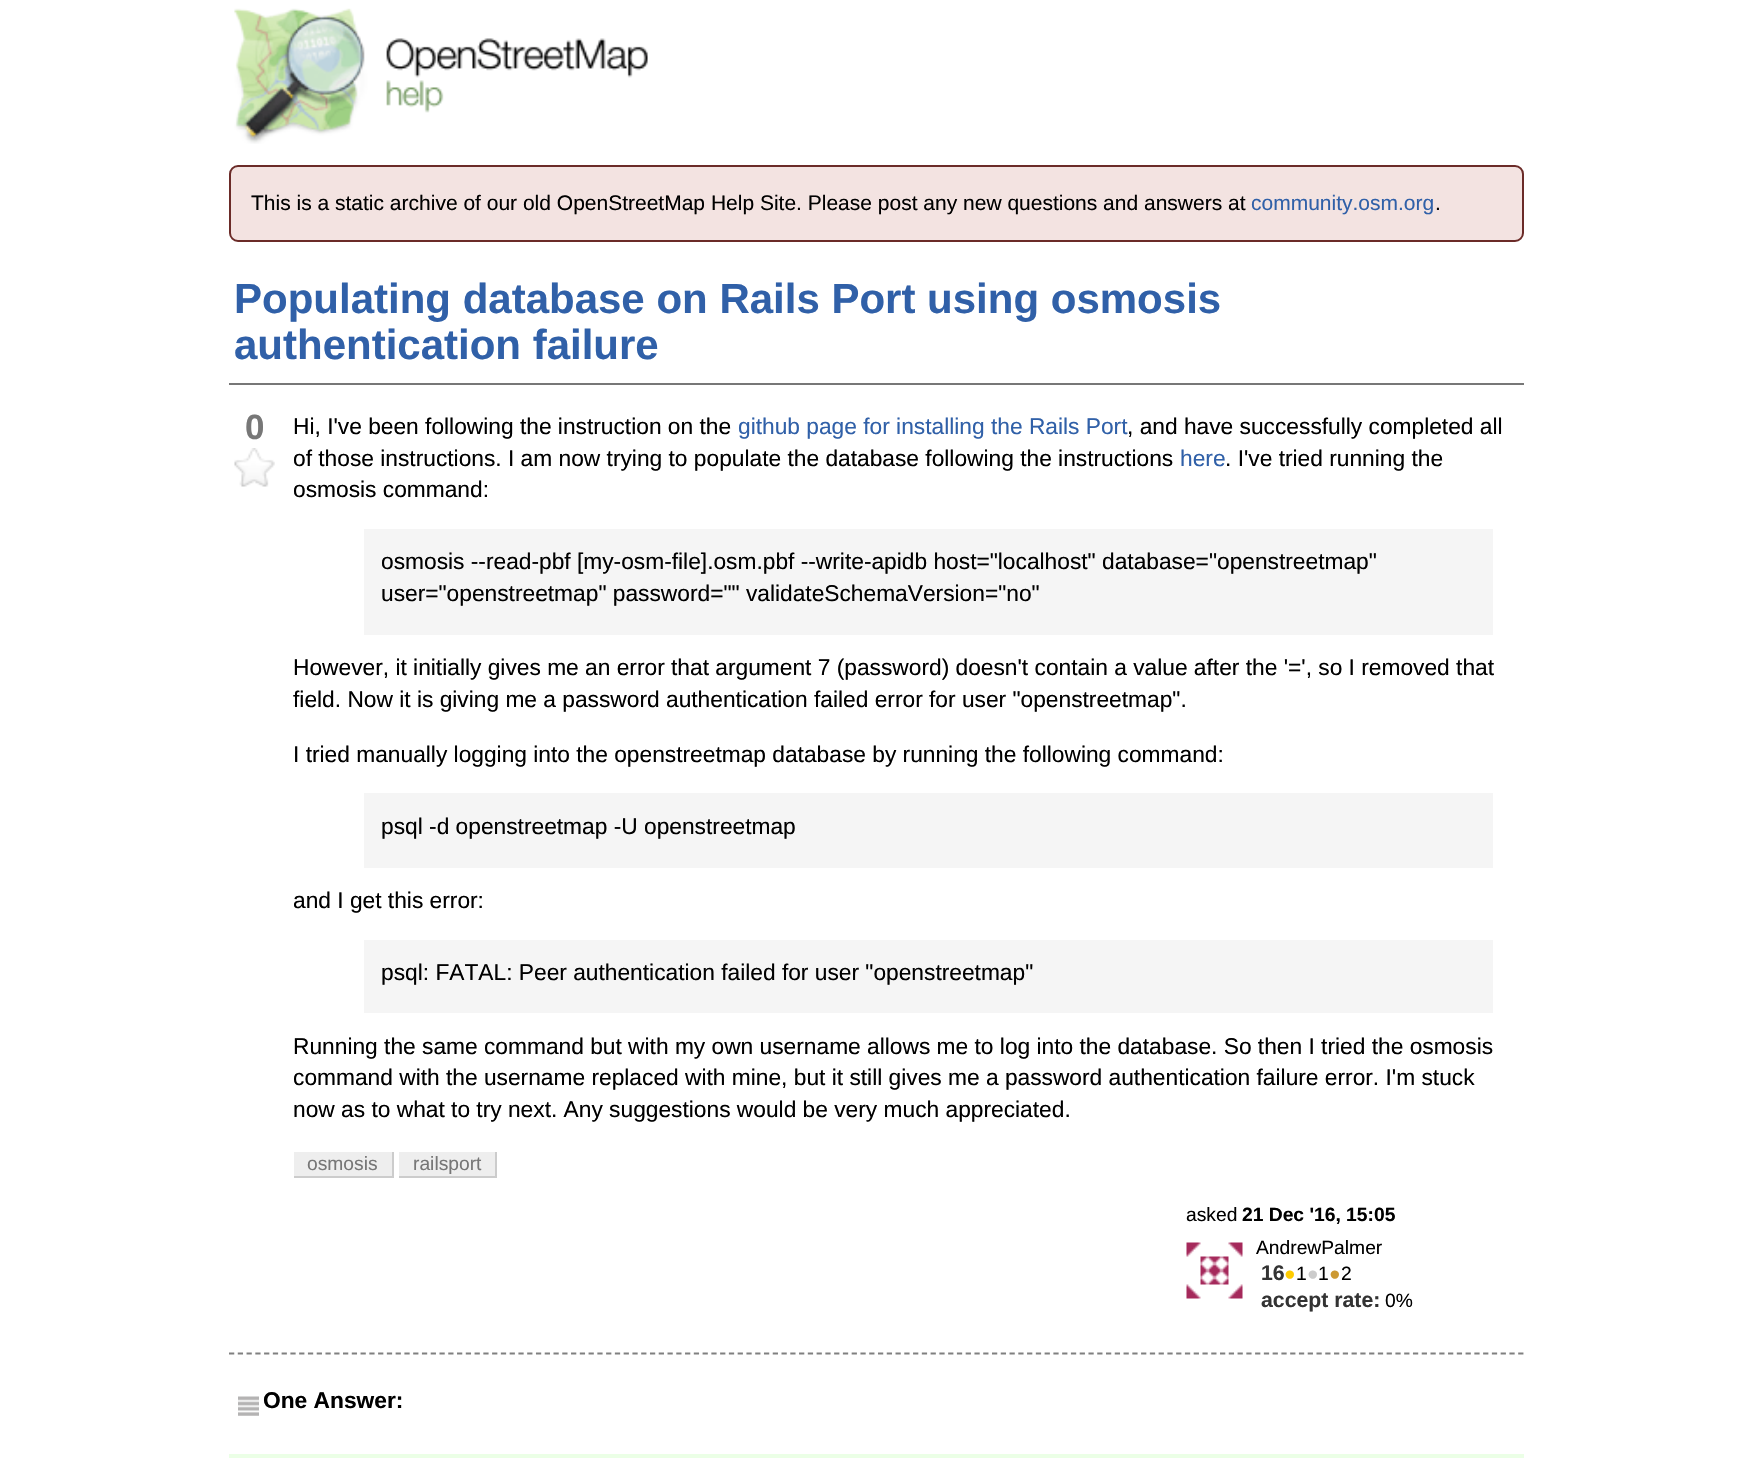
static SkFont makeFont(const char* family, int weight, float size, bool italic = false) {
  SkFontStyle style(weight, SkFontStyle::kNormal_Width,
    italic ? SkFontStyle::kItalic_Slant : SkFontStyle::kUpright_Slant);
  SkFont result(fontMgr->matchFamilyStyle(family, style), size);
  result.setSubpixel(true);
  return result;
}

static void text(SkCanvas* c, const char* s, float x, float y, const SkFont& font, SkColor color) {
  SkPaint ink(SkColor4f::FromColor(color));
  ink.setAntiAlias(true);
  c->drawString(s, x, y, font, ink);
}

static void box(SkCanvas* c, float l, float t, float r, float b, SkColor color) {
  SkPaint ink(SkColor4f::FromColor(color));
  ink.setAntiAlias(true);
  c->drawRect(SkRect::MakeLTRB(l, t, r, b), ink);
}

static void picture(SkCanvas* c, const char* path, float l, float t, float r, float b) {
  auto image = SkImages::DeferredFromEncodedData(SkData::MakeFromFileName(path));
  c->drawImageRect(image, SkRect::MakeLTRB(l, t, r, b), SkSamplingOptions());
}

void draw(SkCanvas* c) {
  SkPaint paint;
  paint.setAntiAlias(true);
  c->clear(0xffffffff);
  picture(c, "img_01.png", 234, 8, 648, 144);
  paint.setColor(0xfff3e3e1);
  c->drawRoundRect(SkRect::MakeLTRB(230, 166, 1523, 241), 8, 8, paint);
  paint.setStyle(SkPaint::kStroke_Style);
  paint.setStrokeWidth(2);
  paint.setColor(0xff6b2b28);
  c->drawRoundRect(SkRect::MakeLTRB(230, 166, 1523, 241), 8, 8, paint);
  SkFont face1 = makeFont("Liberation Sans", 400, 21);
  text(c, "This is a static archive of our old OpenStreetMap Help Site. Please post any new questions and answers at", 251, 210, face1, 0xff000000);
  text(c, "community.osm.org", 1251, 210, face1, 0xff3060a8);
  text(c, ".", 1435, 210, face1, 0xff000000);
  box(c, 229, 383, 1524, 385, 0xff777777);
  SkFont face2 = makeFont("Liberation Sans", 700, 42);
  text(c, "Populating database on Rails Port using osmosis", 234, 313, face2, 0xff3060a8);
  text(c, "authentication failure", 234, 359, face2, 0xff3060a8);
  SkFont face3 = makeFont("Liberation Sans", 700, 35);
  text(c, "0", 245, 439, face3, 0xff777777);
  picture(c, "img_02.png", 234, 448, 275, 487);
  SkFont face4 = makeFont("Liberation Sans", 400, 22.75f);
  text(c, "Hi, I've been following the instruction on the", 293, 434, face4, 0xff000000);
  text(c, "github page for installing the Rails Port", 738, 434, face4, 0xff3060a8);
  text(c, ", and have successfully completed all", 1127, 434, face4, 0xff000000);
  text(c, "of those instructions. I am now trying to populate the database following the instructions", 293, 466, face4, 0xff000000);
  text(c, "here", 1180, 466, face4, 0xff3060a8);
  text(c, ". I've tried running the", 1225, 466, face4, 0xff000000);
  text(c, "osmosis command:", 293, 497, face4, 0xff000000);
  box(c, 364, 529, 1493, 635, 0xfff5f5f5);
  text(c, "osmosis --read-pbf [my-osm-file].osm.pbf --write-apidb host=\"localhost\" database=\"openstreetmap\"", 381, 569, face4, 0xff000000);
  text(c, "user=\"openstreetmap\" password=\"\" validateSchemaVersion=\"no\"", 381, 601, face4, 0xff000000);
  text(c, "However, it initially gives me an error that argument 7 (password) doesn't contain a value after the '=', so I removed that", 293, 675, face4, 0xff000000);
  text(c, "field. Now it is giving me a password authentication failed error for user \"openstreetmap\".", 293, 707, face4, 0xff000000);
  text(c, "I tried manually logging into the openstreetmap database by running the following command:", 293, 762, face4, 0xff000000);
  box(c, 364, 793, 1493, 868, 0xfff5f5f5);
  text(c, "psql -d openstreetmap -U openstreetmap", 381, 834, face4, 0xff000000);
  text(c, "and I get this error:", 293, 908, face4, 0xff000000);
  box(c, 364, 940, 1493, 1013, 0xfff5f5f5);
  text(c, "psql: FATAL: Peer authentication failed for user \"openstreetmap\"", 381, 980, face4, 0xff000000);
  text(c, "Running the same command but with my own username allows me to log into the database. So then I tried the osmosis", 293, 1054, face4, 0xff000000);
  text(c, "command with the username replaced with mine, but it still gives me a password authentication failure error. I'm stuck", 293, 1085, face4, 0xff000000);
  text(c, "now as to what to try next. Any suggestions would be very much appreciated.", 293, 1117, face4, 0xff000000);
  box(c, 294, 1152, 392, 1176, 0xffeeeeee);
  SkFont face5 = makeFont("Liberation Sans", 400, 19.25f);
  text(c, "osmosis", 307, 1170, face5, 0xff777777);
  box(c, 392, 1152, 394, 1178, 0xffcccccc);
  box(c, 294, 1176, 394, 1178, 0xffcccccc);
  box(c, 399, 1152, 495, 1176, 0xffeeeeee);
  text(c, "railsport", 413, 1170, face5, 0xff777777);
  box(c, 495, 1152, 497, 1178, 0xffcccccc);
  box(c, 399, 1176, 497, 1178, 0xffcccccc);
  text(c, "asked", 1186, 1221, face5, 0xff000000);
  SkFont face6 = makeFont("Liberation Sans", 700, 19.25f);
  text(c, "21 Dec '16, 15:05", 1242, 1221, face6, 0xff000000);
  picture(c, "img_03.png", 1186, 1242, 1243, 1299);
  text(c, "AndrewPalmer", 1256, 1254, face5, 0xff000000);
  SkFont face7 = makeFont("Liberation Sans", 700, 21.25f);
  text(c, "16", 1261, 1280, face7, 0xff333333);
  text(c, "●", 1284, 1280, face5, 0xffffcc00);
  text(c, "1", 1296, 1280, face5, 0xff000000);
  text(c, "●", 1307, 1280, face5, 0xffcccccc);
  text(c, "1", 1318, 1280, face5, 0xff000000);
  text(c, "●", 1329, 1280, face5, 0xffcc9933);
  text(c, "2", 1341, 1280, face5, 0xff000000);
  text(c, "accept rate:", 1261, 1307, face7, 0xff333333);
  text(c, "0%", 1385, 1307, face5, 0xff000000);
  paint.setStrokeWidth(1.8f);
  paint.setColor(0xff808080);
  paint.setPathEffect(SkDashPathEffect::Make({{5.25f, 3.52f}}, 0));
  c->drawPath(SkPathBuilder().moveTo(229, 1353.5f).lineTo(1524, 1353.5f).detach(), paint);
  paint.setPathEffect(nullptr);
  picture(c, "img_04.png", 238, 1396, 259, 1416);
  SkFont face8 = makeFont("Liberation Sans", 700, 22.75f);
  text(c, "One Answer:", 263, 1408, face8, 0xff000000);
  box(c, 229, 1454, 1524, 1458, 0xffebffe6);
}
